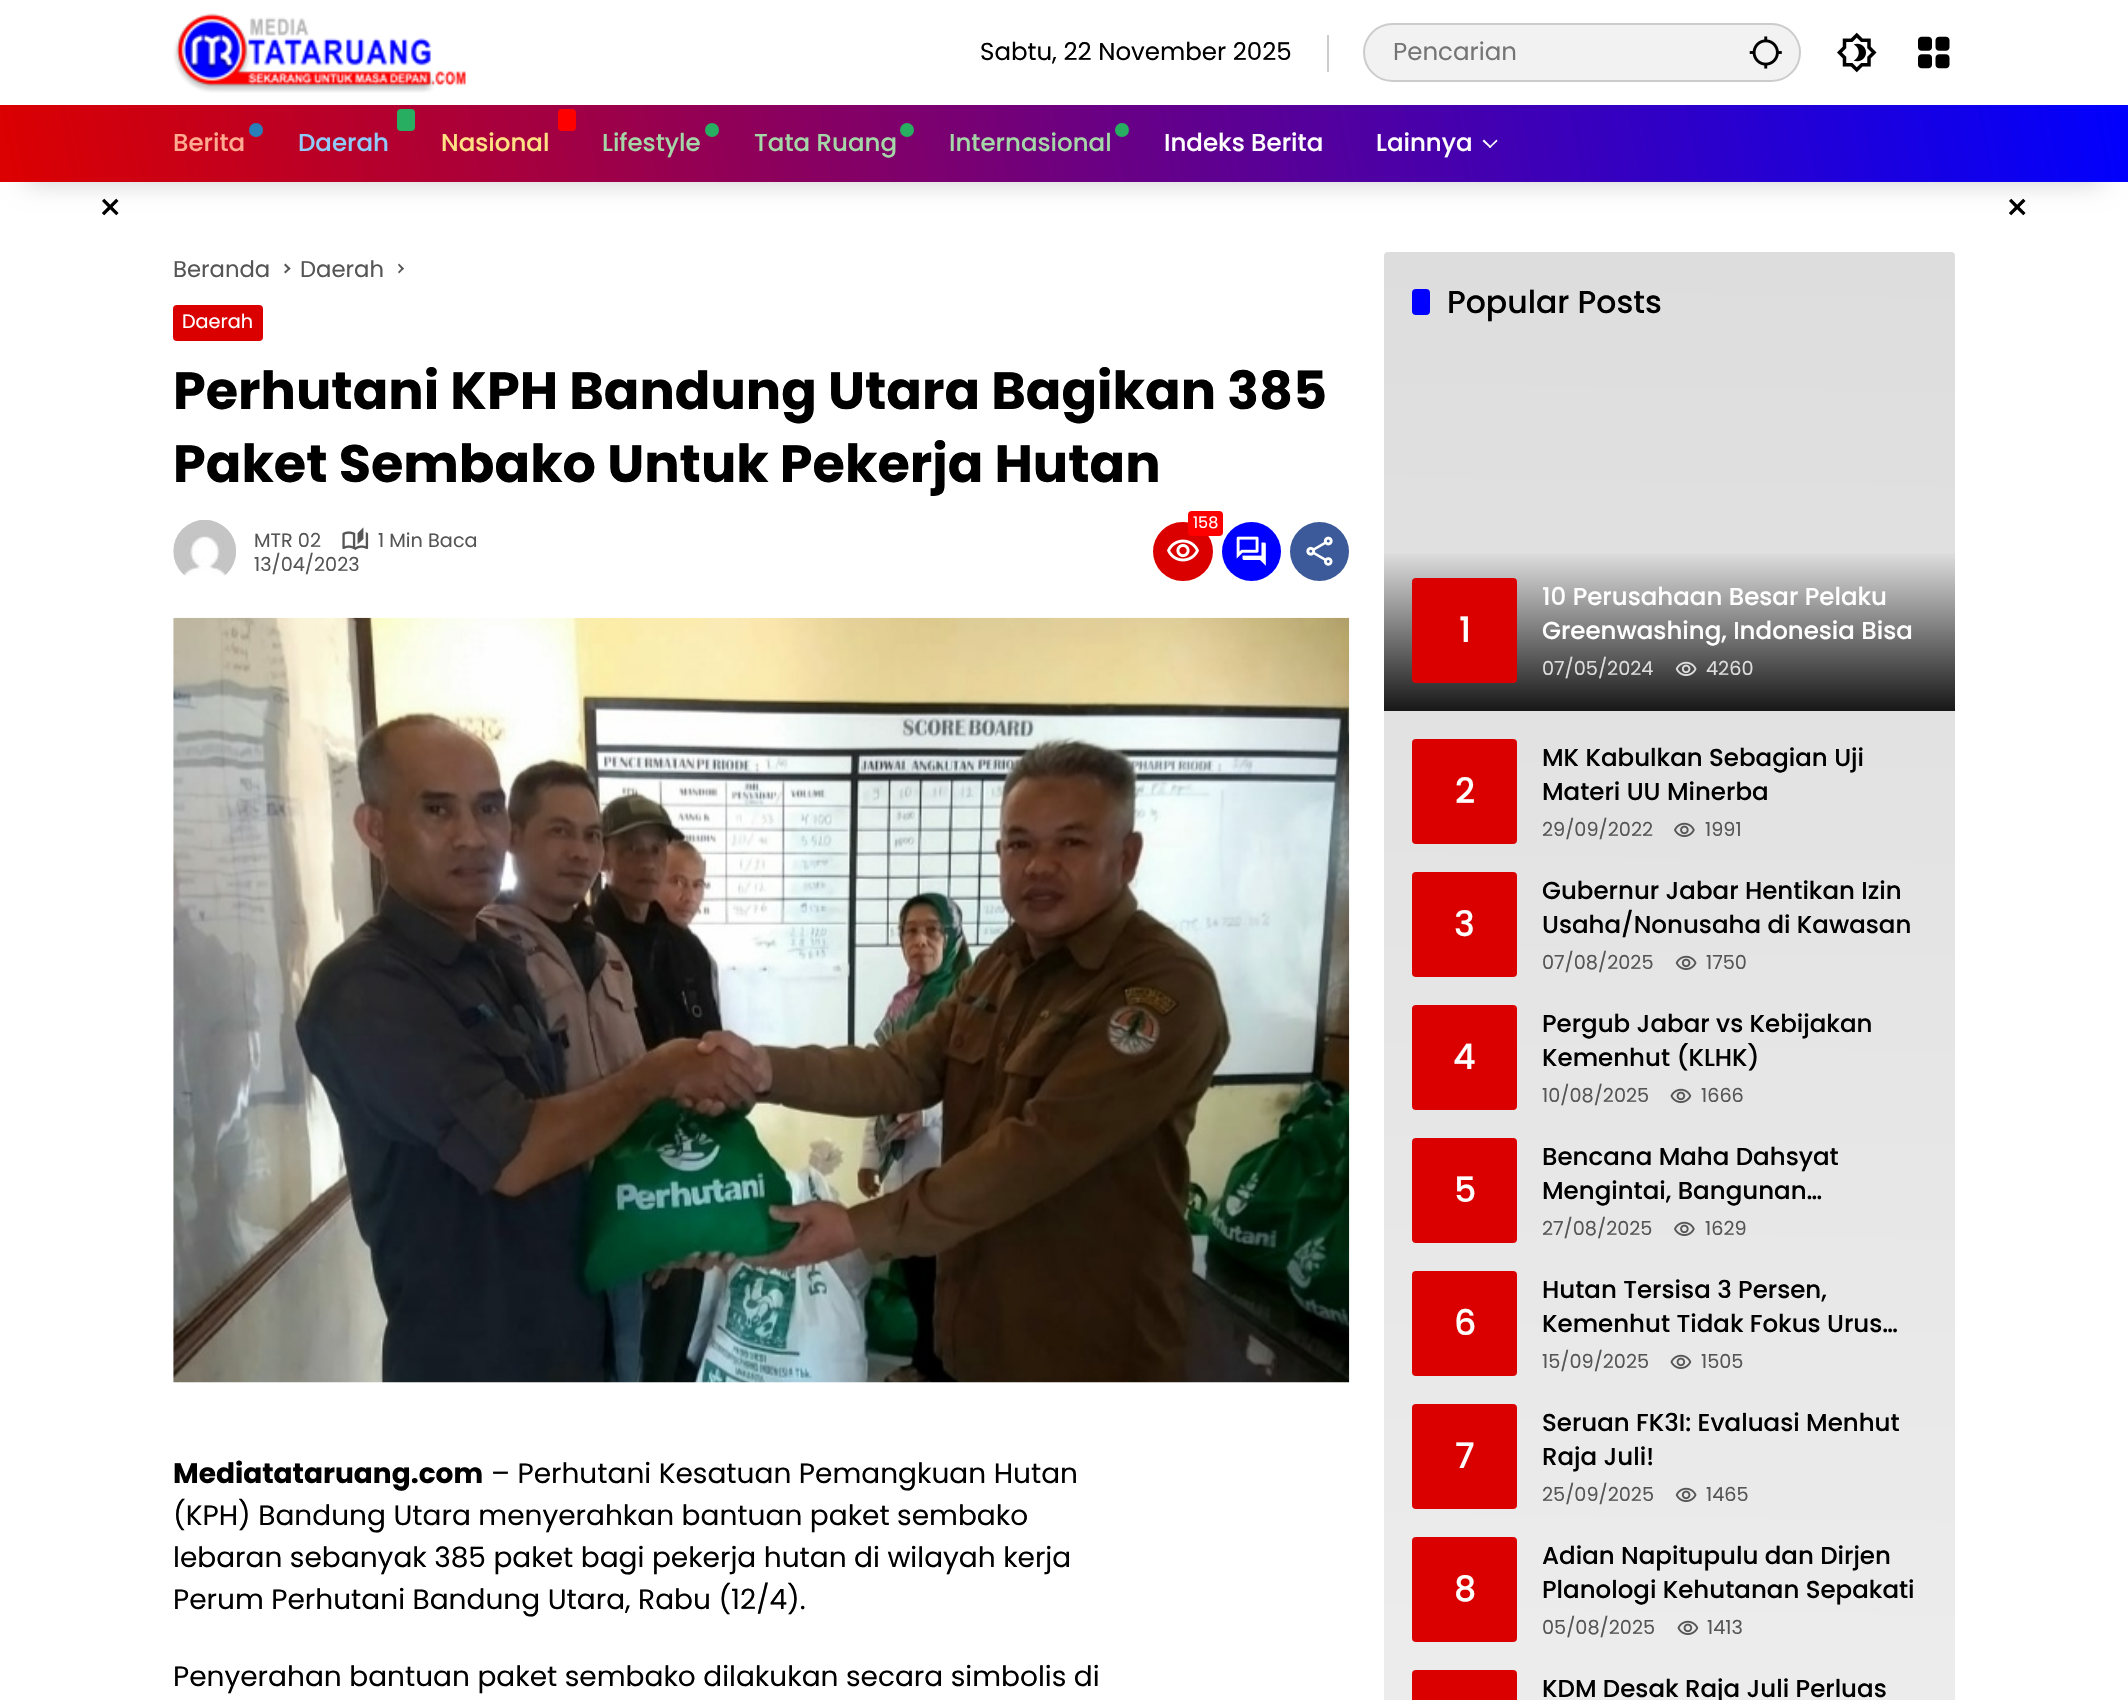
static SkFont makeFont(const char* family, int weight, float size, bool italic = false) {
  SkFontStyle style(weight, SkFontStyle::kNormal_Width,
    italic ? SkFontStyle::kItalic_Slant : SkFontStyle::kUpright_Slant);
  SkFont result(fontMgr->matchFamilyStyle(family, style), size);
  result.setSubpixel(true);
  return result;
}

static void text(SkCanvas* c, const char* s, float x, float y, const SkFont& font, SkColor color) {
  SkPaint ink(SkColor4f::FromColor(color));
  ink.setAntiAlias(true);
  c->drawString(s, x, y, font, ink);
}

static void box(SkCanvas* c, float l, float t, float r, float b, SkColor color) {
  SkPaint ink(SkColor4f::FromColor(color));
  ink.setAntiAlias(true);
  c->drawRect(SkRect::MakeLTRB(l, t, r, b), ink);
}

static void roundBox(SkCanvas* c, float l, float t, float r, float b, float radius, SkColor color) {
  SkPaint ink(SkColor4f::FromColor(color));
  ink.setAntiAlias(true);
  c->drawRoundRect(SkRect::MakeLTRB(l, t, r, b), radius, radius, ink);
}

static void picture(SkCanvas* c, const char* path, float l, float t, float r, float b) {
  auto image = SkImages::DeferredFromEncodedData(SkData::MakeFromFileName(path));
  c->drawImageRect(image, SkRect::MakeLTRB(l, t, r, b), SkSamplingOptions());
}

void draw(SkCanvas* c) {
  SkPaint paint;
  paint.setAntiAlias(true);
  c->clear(0xffffffff);
  picture(c, "img_01.png", 173, 13, 466, 93);
  box(c, 1327, 35, 1329, 72, 0xffcccccc);
  SkFont face1 = makeFont("Poppins", 400, 24.5f);
  text(c, "Sabtu, 22 November 2025", 980, 60, face1, 0xff000000);
  paint.setColor(0xfff2f2f2);
  c->drawRoundRect(SkRect::MakeLTRB(1364, 24, 1800, 81), 28.5f, 28.5f, paint);
  paint.setStyle(SkPaint::kStroke_Style);
  paint.setStrokeWidth(2);
  paint.setColor(0xffcccccc);
  c->drawRoundRect(SkRect::MakeLTRB(1364, 24, 1800, 81), 28.5f, 28.5f, paint);
  text(c, "Pencarian", 1393, 60, face1, 0xff757575);
  picture(c, "img_02.png", 1749, 36, 1782, 69);
  picture(c, "img_03.png", 1837, 32, 1877, 73);
  picture(c, "img_04.png", 1918, 36, 1950, 69);
  paint.setStyle(SkPaint::kFill_Style);
  paint.setColor(0x33000000);
  paint.setMaskFilter(SkMaskFilter::MakeBlur(kNormal_SkBlurStyle, 13));
  c->drawRect(SkRect::MakeLTRB(26, 158, 2102, 182), paint);
  paint.setMaskFilter(nullptr);
  {
    const SkColor colors[] = {0xffdc0000, 0xff0000fe};
    const float stops[] = {0, 1};
    const SkPoint ends[] = {{25, 327}, {2103, -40}};
    paint.setShader(SkGradientShader::MakeLinear(ends, colors, stops, 2, SkTileMode::kClamp));
    paint.setAlpha(255);
  }
  c->drawRect(SkRect::MakeLTRB(0, 105, 2128, 182), paint);
  paint.setShader(nullptr);
  paint.setColor(0xff2980b9);
  c->drawCircle(256, 130, 7, paint);
  SkFont face2 = makeFont("Poppins", 500, 24.5f);
  text(c, "Berita", 173, 151, face2, 0xffffab91);
  roundBox(c, 397, 109, 415, 131, 4, 0xff27ae60);
  text(c, "Daerah", 298, 151, face2, 0xff90caf9);
  roundBox(c, 558, 109, 576, 131, 4, 0xffff0000);
  text(c, "Nasional", 441, 151, face2, 0xffffe082);
  paint.setColor(0xff27ae60);
  c->drawCircle(712, 130, 7, paint);
  text(c, "Lifestyle", 602, 151, face2, 0xffa5d6a7);
  c->drawCircle(907, 130, 7, paint);
  text(c, "Tata Ruang", 754, 151, face2, 0xffa5d6a7);
  c->drawCircle(1122, 130, 7, paint);
  text(c, "Internasional", 949, 151, face2, 0xffa5d6a7);
  text(c, "Indeks Berita", 1164, 151, face2, 0xffffffff);
  text(c, "Lainnya", 1376, 151, face2, 0xffffffff);
  paint.setColor(0xffffffff);
  c->drawPath(SkPathBuilder().moveTo(1496.5f, 139.5f).lineTo(1497.5f, 141).lineTo(1490, 148).lineTo(1489, 147).close().detach(), paint);
  c->drawPath(SkPathBuilder().moveTo(1484, 139.5f).lineTo(1491.5f, 147).lineTo(1490, 148).lineTo(1482.5f, 141).close().detach(), paint);
  SkFont face3 = makeFont("Poppins", 400, 38);
  text(c, "×", 98, 221, face3, 0xff000000);
  text(c, "×", 2005, 221, face3, 0xff000000);
  SkFont face4 = makeFont("Poppins", 400, 22.75f);
  text(c, "Beranda", 173, 277, face4, 0xff555555);
  paint.setColor(0xff555555);
  c->drawPath(SkPathBuilder().moveTo(284, 265).lineTo(285.5f, 263.5f).lineTo(290.5f, 268.5f).lineTo(289, 270).close().detach(), paint);
  c->drawPath(SkPathBuilder().moveTo(284, 272).lineTo(289, 267.5f).lineTo(290.5f, 268.5f).lineTo(285.5f, 273.5f).close().detach(), paint);
  text(c, "Daerah", 300, 277, face4, 0xff555555);
  c->drawPath(SkPathBuilder().moveTo(398, 265).lineTo(399, 263.5f).lineTo(404, 268.5f).lineTo(402.5f, 270).close().detach(), paint);
  c->drawPath(SkPathBuilder().moveTo(398, 272).lineTo(402.5f, 267.5f).lineTo(404, 268.5f).lineTo(399, 273.5f).close().detach(), paint);
  roundBox(c, 173, 305, 263, 341, 4, 0xffdb0000);
  SkFont face5 = makeFont("Poppins", 400, 19.25f);
  text(c, "Daerah", 182, 328, face5, 0xffffffff);
  SkFont face6 = makeFont("Poppins", 700, 52.5f);
  text(c, "Perhutani KPH Bandung Utara Bagikan 385", 173, 409, face6, 0xff000000);
  text(c, "Paket Sembako Untuk Pekerja Hutan", 173, 482, face6, 0xff000000);
  picture(c, "img_05.png", 173, 520, 236, 576);
  text(c, "MTR 02", 254, 547, face5, 0xff555555);
  picture(c, "img_06.png", 342, 527, 369, 550);
  text(c, "1 Min Baca", 378, 547, face5, 0xff555555);
  text(c, "13/04/2023", 254, 571, face5, 0xff555555);
  roundBox(c, 1153, 522, 1213, 581, 29.5f, 0xffdb0000);
  roundBox(c, 1188, 511, 1223, 536, 4, 0xffff0000);
  SkFont face7 = makeFont("Poppins", 400, 16);
  text(c, "158", 1193, 528, face7, 0xffffffff);
  picture(c, "img_07.png", 1167, 539, 1199, 562);
  paint.setColor(0xff0000fe);
  c->drawCircle(1251.5f, 551.5f, 29.5f, paint);
  picture(c, "img_08.png", 1236, 536, 1266, 566);
  paint.setColor(0xff3c5a99);
  c->drawCircle(1319.5f, 551.5f, 29.5f, paint);
  picture(c, "img_09.png", 1306, 536, 1333, 566);
  picture(c, "img_10.png", 173, 617, 1350, 1383);
  SkFont face8 = makeFont("Poppins", 700, 28);
  text(c, "Mediatataruang.com", 173, 1483, face8, 0xff000000);
  SkFont face9 = makeFont("Poppins", 400, 28);
  text(c, "– Perhutani Kesatuan Pemangkuan Hutan", 491, 1483, face9, 0xff000000);
  text(c, "(KPH) Bandung Utara menyerahkan bantuan paket sembako", 173, 1525, face9, 0xff000000);
  text(c, "lebaran sebanyak 385 paket bagi pekerja hutan di wilayah kerja", 173, 1567, face9, 0xff000000);
  text(c, "Perum Perhutani Bandung Utara, Rabu (12/4).", 173, 1609, face9, 0xff000000);
  text(c, "Penyerahan bantuan paket sembako dilakukan secara simbolis di", 173, 1686, face9, 0xff000000);
  {
    const SkColor colors[] = {0xffefefef, 0xffdddddd};
    const float stops[] = {0, 1};
    const SkPoint ends[] = {{1655, 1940}, {1684, 247}};
    paint.setShader(SkGradientShader::MakeLinear(ends, colors, stops, 2, SkTileMode::kClamp));
    paint.setAlpha(255);
  }
  c->drawRoundRect(SkRect::MakeLTRB(1384, 252, 1955, 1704), 4, 4, paint);
  roundBox(c, 1412, 289, 1430, 315, 4, 0xff0000fe);
  SkFont face10 = makeFont("Poppins", 500, 31.5f);
  text(c, "Popular Posts", 1447, 313, face10, 0xff000000);
  {
    const SkColor colors[] = {0xff171717, 0xffe1e1e1};
    const float stops[] = {0, 1};
    const SkPoint ends[] = {{1670, 711}, {1670, 550}};
    paint.setShader(SkGradientShader::MakeLinear(ends, colors, stops, 2, SkTileMode::kClamp));
    paint.setAlpha(255);
  }
  c->drawRect(SkRect::MakeLTRB(1384, 553, 1955, 711), paint);
  roundBox(c, 1412, 578, 1517, 683, 4, 0xffdb0000);
  SkFont face11 = makeFont("Poppins", 500, 35);
  text(c, "1", 1459, 642, face11, 0xffffffff);
  text(c, "10 Perusahaan Besar Pelaku", 1542, 605, face2, 0xffffffff);
  text(c, "Greenwashing, Indonesia Bisa", 1542, 639, face2, 0xffffffff);
  text(c, "07/05/2024", 1542, 675, face5, 0xffdddddd);
  picture(c, "img_11.png", 1675, 661, 1697, 676);
  text(c, "4260", 1706, 675, face5, 0xffdddddd);
  roundBox(c, 1412, 739, 1517, 844, 4, 0xffdb0000);
  text(c, "2", 1455, 803, face11, 0xffffffff);
  text(c, "MK Kabulkan Sebagian Uji", 1542, 766, face2, 0xff000000);
  text(c, "Materi UU Minerba", 1542, 800, face2, 0xff000000);
  text(c, "29/09/2022", 1542, 836, face5, 0xff555555);
  picture(c, "img_12.png", 1674, 822, 1695, 837);
  text(c, "1991", 1705, 836, face5, 0xff555555);
  roundBox(c, 1412, 872, 1517, 977, 4, 0xffdb0000);
  text(c, "3", 1454, 936, face11, 0xffffffff);
  text(c, "Gubernur Jabar Hentikan Izin", 1542, 899, face2, 0xff000000);
  text(c, "Usaha/Nonusaha di Kawasan", 1542, 933, face2, 0xff000000);
  text(c, "07/08/2025", 1542, 969, face5, 0xff555555);
  picture(c, "img_13.png", 1675, 955, 1697, 970);
  text(c, "1750", 1706, 969, face5, 0xff555555);
  roundBox(c, 1412, 1005, 1517, 1110, 4, 0xffdb0000);
  text(c, "4", 1453, 1069, face11, 0xffffffff);
  text(c, "Pergub Jabar vs Kebijakan", 1542, 1032, face2, 0xff000000);
  text(c, "Kemenhut (KLHK)", 1542, 1066, face2, 0xff000000);
  text(c, "10/08/2025", 1542, 1102, face5, 0xff555555);
  picture(c, "img_14.png", 1670, 1088, 1692, 1103);
  text(c, "1666", 1701, 1102, face5, 0xff555555);
  roundBox(c, 1412, 1138, 1517, 1243, 4, 0xffdb0000);
  text(c, "5", 1454, 1202, face11, 0xffffffff);
  text(c, "Bencana Maha Dahsyat", 1542, 1165, face2, 0xff000000);
  text(c, "Mengintai, Bangunan…", 1542, 1199, face2, 0xff000000);
  text(c, "27/08/2025", 1542, 1235, face5, 0xff555555);
  picture(c, "img_15.png", 1674, 1221, 1695, 1236);
  text(c, "1629", 1705, 1235, face5, 0xff555555);
  roundBox(c, 1412, 1271, 1517, 1376, 4, 0xffdb0000);
  text(c, "6", 1454, 1335, face11, 0xffffffff);
  text(c, "Hutan Tersisa 3 Persen,", 1542, 1298, face2, 0xff000000);
  text(c, "Kemenhut Tidak Fokus Urus…", 1542, 1332, face2, 0xff000000);
  text(c, "15/09/2025", 1542, 1368, face5, 0xff555555);
  picture(c, "img_16.png", 1670, 1354, 1692, 1369);
  text(c, "1505", 1701, 1368, face5, 0xff555555);
  roundBox(c, 1412, 1404, 1517, 1509, 4, 0xffdb0000);
  text(c, "7", 1455, 1468, face11, 0xffffffff);
  text(c, "Seruan FK3I: Evaluasi Menhut", 1542, 1431, face2, 0xff000000);
  text(c, "Raja Juli!", 1542, 1465, face2, 0xff000000);
  text(c, "25/09/2025", 1542, 1501, face5, 0xff555555);
  picture(c, "img_17.png", 1675, 1487, 1697, 1502);
  text(c, "1465", 1706, 1501, face5, 0xff555555);
  roundBox(c, 1412, 1537, 1517, 1642, 4, 0xffdb0000);
  text(c, "8", 1454, 1601, face11, 0xffffffff);
  text(c, "Adian Napitupulu dan Dirjen", 1542, 1564, face2, 0xff000000);
  text(c, "Planologi Kehutanan Sepakati", 1542, 1598, face2, 0xff000000);
  text(c, "05/08/2025", 1542, 1634, face5, 0xff555555);
  picture(c, "img_18.png", 1677, 1620, 1699, 1635);
  text(c, "1413", 1707, 1634, face5, 0xff555555);
  roundBox(c, 1412, 1670, 1517, 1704, 4, 0xffdb0000);
  text(c, "KDM Desak Raja Juli Perluas", 1542, 1697, face2, 0xff000000);
}
